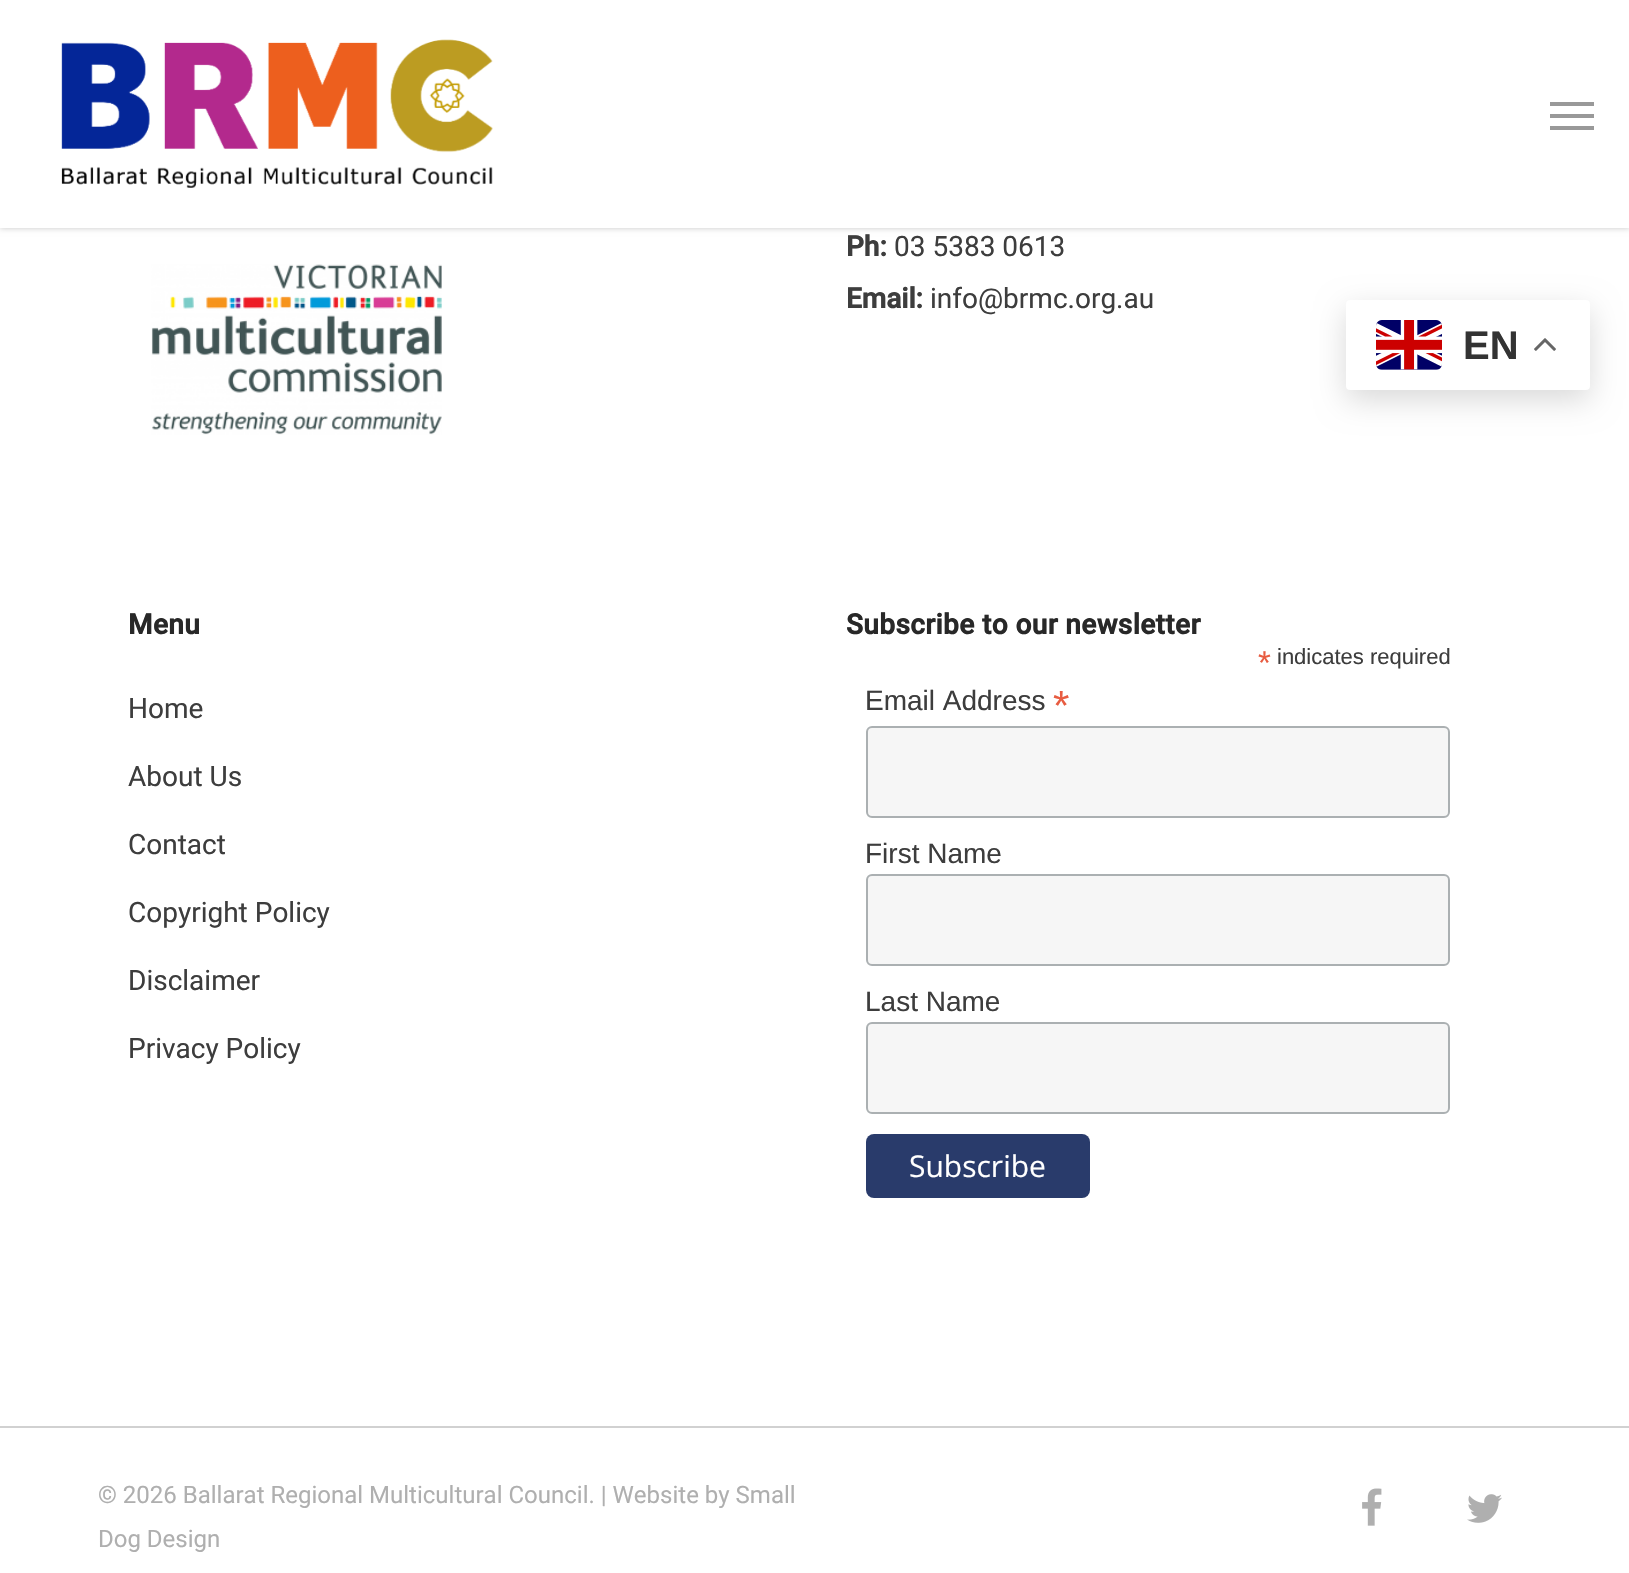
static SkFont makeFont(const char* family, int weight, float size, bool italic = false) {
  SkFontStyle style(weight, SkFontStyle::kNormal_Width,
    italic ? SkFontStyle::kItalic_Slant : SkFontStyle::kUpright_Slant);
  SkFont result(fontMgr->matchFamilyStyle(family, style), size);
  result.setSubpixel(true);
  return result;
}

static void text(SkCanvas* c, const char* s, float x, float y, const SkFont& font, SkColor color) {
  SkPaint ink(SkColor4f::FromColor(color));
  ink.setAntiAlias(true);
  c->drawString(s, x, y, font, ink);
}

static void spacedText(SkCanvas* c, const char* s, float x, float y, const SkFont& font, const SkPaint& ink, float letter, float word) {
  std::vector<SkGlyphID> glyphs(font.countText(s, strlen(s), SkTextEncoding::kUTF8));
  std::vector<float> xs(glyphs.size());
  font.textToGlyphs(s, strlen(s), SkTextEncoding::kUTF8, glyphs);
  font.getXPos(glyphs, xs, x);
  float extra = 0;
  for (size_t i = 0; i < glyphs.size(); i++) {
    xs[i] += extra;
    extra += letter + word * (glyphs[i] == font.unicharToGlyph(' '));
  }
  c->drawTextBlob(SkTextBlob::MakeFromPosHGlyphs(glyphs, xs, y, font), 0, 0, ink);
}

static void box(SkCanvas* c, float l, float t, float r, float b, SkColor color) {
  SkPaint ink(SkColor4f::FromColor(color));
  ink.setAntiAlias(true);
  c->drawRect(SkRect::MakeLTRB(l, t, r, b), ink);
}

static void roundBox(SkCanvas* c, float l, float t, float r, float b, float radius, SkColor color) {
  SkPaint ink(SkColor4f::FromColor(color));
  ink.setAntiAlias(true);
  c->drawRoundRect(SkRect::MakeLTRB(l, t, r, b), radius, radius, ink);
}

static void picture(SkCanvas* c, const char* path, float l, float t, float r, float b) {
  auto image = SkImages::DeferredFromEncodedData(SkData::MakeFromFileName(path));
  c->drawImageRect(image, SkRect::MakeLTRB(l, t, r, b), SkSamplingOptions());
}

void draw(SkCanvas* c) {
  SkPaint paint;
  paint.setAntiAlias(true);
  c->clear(0xffffffff);
  paint.setColor(0x38000000);
  paint.setMaskFilter(SkMaskFilter::MakeBlur(kNormal_SkBlurStyle, 3));
  c->drawRect(SkRect::MakeLTRB(0, 0, 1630, 228), paint);
  paint.setMaskFilter(nullptr);
  box(c, 0, 0, 1629, 228, 0xffffffff);
  picture(c, "img_01.png", 61, 39, 493, 188);
  box(c, 1550, 102, 1594, 106, 0xff999999);
  box(c, 1550, 126, 1594, 130, 0xff999999);
  box(c, 1550, 114, 1594, 118, 0xff999999);
  picture(c, "img_02.png", 151, 264, 442, 435);
  SkFont face1 = makeFont("Roboto", 700, 28);
  text(c, "Ph:", 846, 256, face1, 0xff3d3d3d);
  SkFont face2 = makeFont("Roboto", 400, 28);
  text(c, "03 5383 0613", 894, 256, face2, 0xff3d3d3d);
  text(c, "Email:", 846, 308, face1, 0xff3d3d3d);
  text(c, "info@brmc.org.au", 930, 308, face2, 0xff3d3d3d);
  paint.setColor(0xff282828);
  spacedText(c, "Menu", 128, 634, face1, paint, 0.4f, 0);
  text(c, "Home", 128, 718, face2, 0xff3d3d3d);
  text(c, "About Us", 128, 786, face2, 0xff3d3d3d);
  text(c, "Contact", 128, 854, face2, 0xff3d3d3d);
  text(c, "Copyright Policy", 128, 922, face2, 0xff3d3d3d);
  text(c, "Disclaimer", 128, 990, face2, 0xff3d3d3d);
  text(c, "Privacy Policy", 128, 1058, face2, 0xff3d3d3d);
  spacedText(c, "Subscribe to our newsletter", 846, 634, face1, paint, 0.4f, 0);
  SkFont face3 = makeFont("Liberation Sans", 400, 33);
  text(c, "*", 1258, 674, face3, 0xffe85c41);
  SkFont face4 = makeFont("Liberation Sans", 400, 22);
  text(c, "indicates required", 1277, 664, face4, 0xff3d3d3d);
  SkFont face5 = makeFont("Liberation Sans", 400, 28);
  text(c, "Email Address", 865, 710, face5, 0xff3d3d3d);
  SkFont face6 = makeFont("Liberation Sans", 400, 42);
  text(c, "*", 1053, 720, face6, 0xffe85c41);
  paint.setColor(0xfff6f6f6);
  c->drawRoundRect(SkRect::MakeLTRB(867, 727, 1449, 817), 5, 5, paint);
  paint.setStyle(SkPaint::kStroke_Style);
  paint.setStrokeWidth(2);
  paint.setColor(0xffabb0b2);
  c->drawRoundRect(SkRect::MakeLTRB(867, 727, 1449, 817), 5, 5, paint);
  text(c, "First Name", 865, 863, face5, 0xff3d3d3d);
  paint.setStyle(SkPaint::kFill_Style);
  paint.setColor(0xfff6f6f6);
  c->drawRoundRect(SkRect::MakeLTRB(867, 875, 1449, 965), 5, 5, paint);
  paint.setStyle(SkPaint::kStroke_Style);
  paint.setColor(0xffabb0b2);
  c->drawRoundRect(SkRect::MakeLTRB(867, 875, 1449, 965), 5, 5, paint);
  text(c, "Last Name", 865, 1011, face5, 0xff3d3d3d);
  paint.setStyle(SkPaint::kFill_Style);
  paint.setColor(0xfff6f6f6);
  c->drawRoundRect(SkRect::MakeLTRB(867, 1023, 1449, 1113), 5, 5, paint);
  paint.setStyle(SkPaint::kStroke_Style);
  paint.setColor(0xffabb0b2);
  c->drawRoundRect(SkRect::MakeLTRB(867, 1023, 1449, 1113), 5, 5, paint);
  roundBox(c, 866, 1134, 1090, 1198, 8, 0xff293b6b);
  SkFont face7 = makeFont("Open Sans", 400, 30);
  text(c, "Subscribe", 909, 1177, face7, 0xffffffff);
  box(c, 0, 1426, 1629, 1428, 0xffd1d1d1);
  SkFont face8 = makeFont("Roboto", 400, 24);
  text(c, "© 2026 Ballarat Regional Multicultural Council. | Website by Small", 98, 1503, face8, 0xffafafaf);
  text(c, "Dog Design", 98, 1547, face8, 0xffafafaf);
  picture(c, "img_03.png", 1362, 1488, 1382, 1526);
  picture(c, "img_04.png", 1467, 1494, 1502, 1523);
  paint.setStyle(SkPaint::kFill_Style);
  paint.setColor(0x26000000);
  paint.setMaskFilter(SkMaskFilter::MakeBlur(kNormal_SkBlurStyle, 15));
  c->drawRoundRect(SkRect::MakeLTRB(1346, 310, 1590, 400), 4, 4, paint);
  paint.setMaskFilter(nullptr);
  roundBox(c, 1346, 300, 1590, 390, 4, 0xffffffff);
  picture(c, "img_05.png", 1376, 320, 1442, 370);
  SkFont face9 = makeFont("Liberation Sans", 700, 40);
  text(c, "EN", 1463, 359, face9, 0xff333333);
  picture(c, "img_06.png", 1534, 338, 1556, 351);
}
